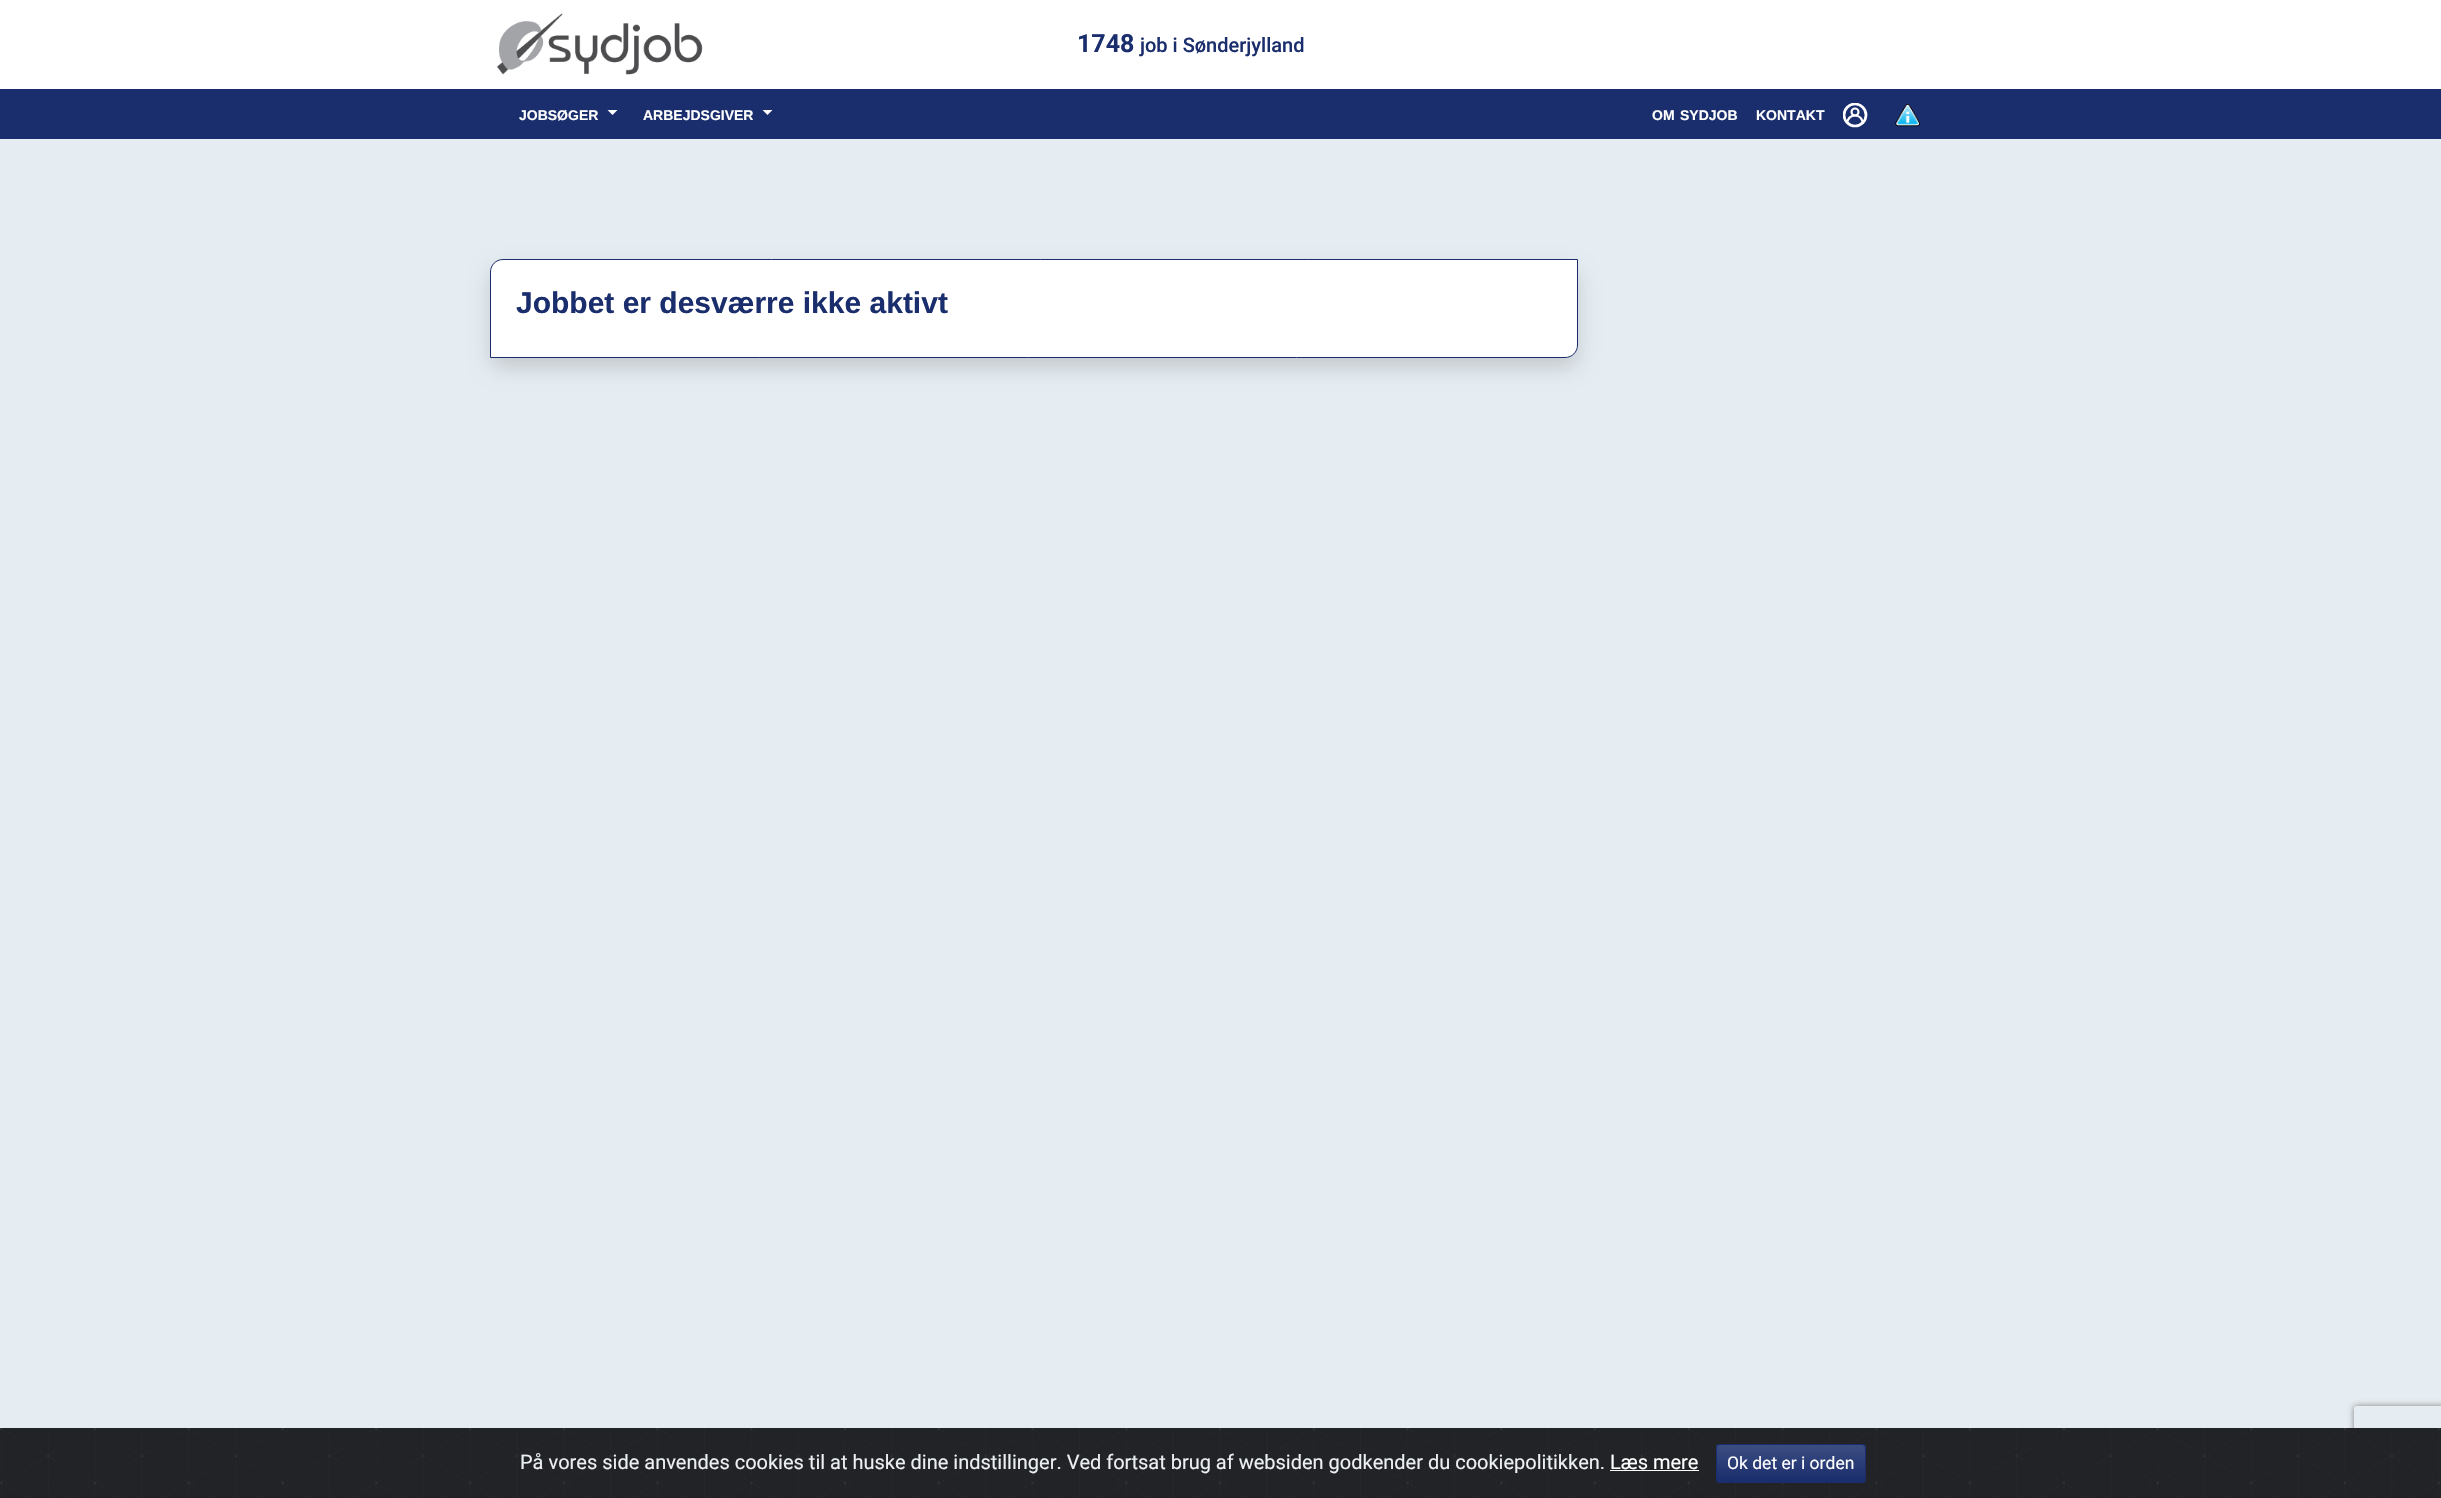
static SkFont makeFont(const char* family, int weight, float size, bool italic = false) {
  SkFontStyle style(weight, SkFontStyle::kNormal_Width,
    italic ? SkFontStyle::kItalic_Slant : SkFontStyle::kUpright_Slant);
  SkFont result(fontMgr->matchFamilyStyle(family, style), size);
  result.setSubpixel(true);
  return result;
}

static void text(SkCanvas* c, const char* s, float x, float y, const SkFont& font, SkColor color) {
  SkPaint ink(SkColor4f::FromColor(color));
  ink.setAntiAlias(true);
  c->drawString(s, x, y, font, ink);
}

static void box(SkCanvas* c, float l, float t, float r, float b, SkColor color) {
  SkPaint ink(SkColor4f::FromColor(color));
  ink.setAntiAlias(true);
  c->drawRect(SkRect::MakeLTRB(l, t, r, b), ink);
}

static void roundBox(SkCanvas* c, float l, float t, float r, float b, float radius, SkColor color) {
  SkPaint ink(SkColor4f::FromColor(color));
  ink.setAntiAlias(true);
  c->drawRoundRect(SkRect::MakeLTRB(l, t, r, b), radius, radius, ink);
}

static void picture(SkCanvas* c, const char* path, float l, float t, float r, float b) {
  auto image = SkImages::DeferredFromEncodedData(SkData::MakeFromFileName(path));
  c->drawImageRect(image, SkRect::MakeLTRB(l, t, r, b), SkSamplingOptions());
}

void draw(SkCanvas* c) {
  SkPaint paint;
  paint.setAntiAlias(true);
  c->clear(0xffe6edf2);
  box(c, 0, 0, 2441, 89, 0xffffffff);
  picture(c, "img_01.png", 496, 13, 703, 75);
  SkFont face1 = makeFont("Roboto", 700, 25);
  text(c, "1748", 1077, 52, face1, 0xff1a2d6c);
  SkFont face2 = makeFont("Roboto", 500, 20);
  text(c, "job i Sønderjylland", 1140, 52, face2, 0xff1a2d6c);
  box(c, 0, 89, 2441, 139, 0xff1a2d6c);
  SkFont face3 = makeFont("Liberation Sans", 700, 14);
  text(c, "JOBSØGER", 519, 120, face3, 0xffffffff);
  paint.setColor(0xffffffff);
  c->drawPath(SkPathBuilder().moveTo(607.5f, 110).lineTo(617.5f, 110).lineTo(612.5f, 115).close().detach(), paint);
  text(c, "ARBEJDSGIVER", 643, 120, face3, 0xffffffff);
  c->drawPath(SkPathBuilder().moveTo(762.5f, 110).lineTo(772.5f, 110).lineTo(767.5f, 115).close().detach(), paint);
  text(c, "OM", 1652, 120, face3, 0xffffffff);
  text(c, "SYDJOB", 1680, 120, face3, 0xffffffff);
  text(c, "KONTAKT", 1756, 120, face3, 0xffffffff);
  c->save();
  c->clipRect(SkRect::MakeLTRB(1843, 103, 1868, 128));
  paint.setStyle(SkPaint::kStroke_Style);
  paint.setStrokeWidth(2.7f);
  c->drawCircle(1855, 115, 11, paint);
  c->restore();
  paint.setStrokeWidth(2.1f);
  c->drawCircle(1855, 112, 3.5f, paint);
  c->drawPath(SkPathBuilder().moveTo(1847.5f, 123.5f).cubicTo(1847, 112.5f, 1863.5f, 113, 1862.5f, 124).detach(), paint);
  picture(c, "img_02.png", 1895, 103, 1921, 127);
  paint.setStyle(SkPaint::kFill_Style);
  paint.setColor(0x26000000);
  paint.setMaskFilter(SkMaskFilter::MakeBlur(kNormal_SkBlurStyle, 10));
  c->drawRoundRect(SkRect::MakeLTRB(490, 269, 1578, 368), 13, 13, paint);
  paint.setMaskFilter(nullptr);
  paint.setColor(0xffffffff);
  c->drawPath(SkPathBuilder().moveTo(503, 259.5f).lineTo(1577.5f, 259.5f).lineTo(1577.5f, 345).cubicTo(1577.5f, 352, 1572, 357.5f, 1565, 357.5f).lineTo(490.5f, 357.5f).lineTo(490.5f, 272).cubicTo(490.5f, 265, 496, 259.5f, 503, 259.5f).close().detach(), paint);
  paint.setStyle(SkPaint::kStroke_Style);
  paint.setStrokeWidth(1);
  paint.setColor(0xff1a2d6c);
  c->drawPath(SkPathBuilder().moveTo(503, 259.5f).lineTo(1577.5f, 259.5f).lineTo(1577.5f, 345).cubicTo(1577.5f, 352, 1572, 357.5f, 1565, 357.5f).lineTo(490.5f, 357.5f).lineTo(490.5f, 272).cubicTo(490.5f, 265, 496, 259.5f, 503, 259.5f).close().detach(), paint);
  SkFont face4 = makeFont("Liberation Sans", 700, 30);
  text(c, "Jobbet er desværre ikke aktivt", 516, 313, face4, 0xff1a2d6c);
  c->save();
  c->clipPath(SkPathBuilder(SkPathFillType::kEvenOdd).moveTo(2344, 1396).lineTo(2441, 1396).lineTo(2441, 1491).lineTo(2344, 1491).close().moveTo(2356.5f, 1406).lineTo(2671.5f, 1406).cubicTo(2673, 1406, 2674, 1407, 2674, 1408.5f).lineTo(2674, 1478.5f).cubicTo(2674, 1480, 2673, 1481, 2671.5f, 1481).lineTo(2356.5f, 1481).cubicTo(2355, 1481, 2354, 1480, 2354, 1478.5f).lineTo(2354, 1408.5f).cubicTo(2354, 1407, 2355, 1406, 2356.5f, 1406).close().detach(), true);
  paint.setStyle(SkPaint::kFill_Style);
  paint.setColor(0xff808080);
  paint.setMaskFilter(SkMaskFilter::MakeBlur(kNormal_SkBlurStyle, 3));
  c->drawRoundRect(SkRect::MakeLTRB(2354, 1406, 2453, 1481), 2.5f, 2.5f, paint);
  paint.setMaskFilter(nullptr);
  c->restore();
  picture(c, "img_03.png", 0, 1428, 2441, 1498);
  SkFont face5 = makeFont("Roboto", 400, 20);
  text(c, "På vores side anvendes cookies til at huske dine indstillinger. Ved fortsat brug af websiden godkender du cookiepolitikken.", 520, 1469, face5, 0xffecf0f1);
  text(c, "Læs mere", 1610, 1469, face5, 0xffffffff);
  box(c, 1610, 1470, 1699, 1471, 0xffffffff);
  roundBox(c, 1716, 1444, 1866, 1483, 4, 0xff1a2d6c);
  c->save();
  c->clipPath(SkPathBuilder().moveTo(1720, 1444).lineTo(1862, 1444).cubicTo(1864, 1444, 1866, 1446, 1866, 1448).lineTo(1866, 1479).cubicTo(1866, 1481, 1864, 1483, 1862, 1483).lineTo(1720, 1483).cubicTo(1718, 1483, 1716, 1481, 1716, 1479).lineTo(1716, 1448).cubicTo(1716, 1446, 1718, 1444, 1720, 1444).close().detach(), true);
  {
    const SkColor colors[] = {0xff3c4d82, 0xff1a2d6c};
    const float stops[] = {0, 1};
    const SkPoint ends[] = {{1791, 1445}, {1791, 1481}};
    paint.setShader(SkGradientShader::MakeLinear(ends, colors, stops, 2, SkTileMode::kClamp));
    paint.setAlpha(255);
  }
  c->drawRect(SkRect::MakeLTRB(1716, 1445, 1866, 1481), paint);
  c->restore();
  paint.setStyle(SkPaint::kStroke_Style);
  paint.setShader(nullptr);
  paint.setColor(0xff1a2d6c);
  c->drawRoundRect(SkRect::MakeLTRB(1716.5f, 1444.5f, 1865.5f, 1482.5f), 3.5f, 3.5f, paint);
  SkFont face6 = makeFont("Roboto", 400, 17.5f);
  text(c, "Ok det er i orden", 1727, 1469, face6, 0xffffffff);
}
